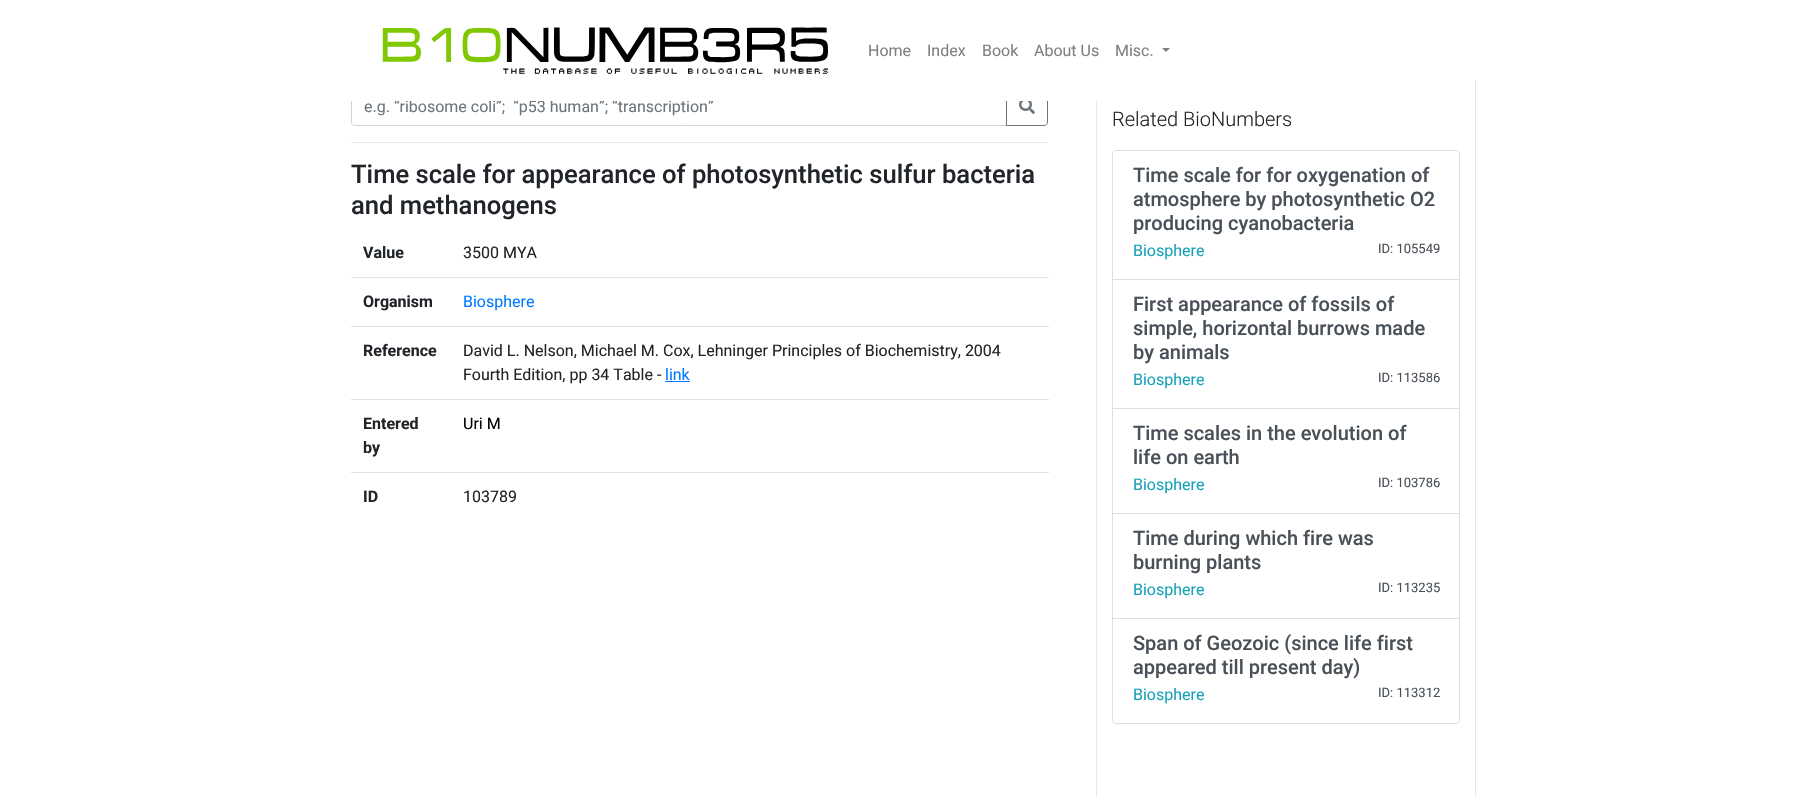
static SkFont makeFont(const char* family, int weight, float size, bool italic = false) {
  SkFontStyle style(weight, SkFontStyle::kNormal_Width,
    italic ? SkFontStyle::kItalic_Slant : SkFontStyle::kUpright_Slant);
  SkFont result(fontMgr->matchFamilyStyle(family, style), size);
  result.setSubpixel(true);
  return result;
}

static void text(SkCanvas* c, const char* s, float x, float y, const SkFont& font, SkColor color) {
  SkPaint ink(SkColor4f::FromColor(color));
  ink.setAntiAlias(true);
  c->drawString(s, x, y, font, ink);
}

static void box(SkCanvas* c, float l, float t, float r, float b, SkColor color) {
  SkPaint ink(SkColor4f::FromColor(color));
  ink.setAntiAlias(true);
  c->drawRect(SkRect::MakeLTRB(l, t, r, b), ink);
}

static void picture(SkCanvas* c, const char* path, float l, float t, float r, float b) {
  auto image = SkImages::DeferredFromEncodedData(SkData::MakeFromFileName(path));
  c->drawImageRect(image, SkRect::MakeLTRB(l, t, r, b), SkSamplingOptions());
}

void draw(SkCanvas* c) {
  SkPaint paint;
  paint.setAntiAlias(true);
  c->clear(0xffffffff);
  paint.setStyle(SkPaint::kStroke_Style);
  paint.setStrokeWidth(1);
  paint.setColor(0xffced4da);
  c->drawPath(SkPathBuilder().moveTo(355, 88.5f).lineTo(1006.5f, 88.5f).lineTo(1006.5f, 125.5f).lineTo(355, 125.5f).cubicTo(353, 125.5f, 351.5f, 124, 351.5f, 122).lineTo(351.5f, 92).cubicTo(351.5f, 90, 353, 88.5f, 355, 88.5f).close().detach(), paint);
  SkFont face1 = makeFont("Roboto", 400, 16);
  text(c, "e.g. “ribosome coli”;  “p53 human”; “transcription”", 364, 112, face1, 0xff6c757d);
  paint.setColor(0xff6c757d);
  c->drawPath(SkPathBuilder().moveTo(1006.5f, 88.5f).lineTo(1044, 88.5f).cubicTo(1046, 88.5f, 1047.5f, 90, 1047.5f, 92).lineTo(1047.5f, 122).cubicTo(1047.5f, 124, 1046, 125.5f, 1044, 125.5f).lineTo(1006.5f, 125.5f).close().detach(), paint);
  box(c, 351, 88, 1048, 101, 0xffffffff);
  picture(c, "img_01.png", 382, 27, 828, 74);
  text(c, "Home", 868, 56, face1, 0xff808080);
  text(c, "Index", 927, 56, face1, 0xff808080);
  text(c, "Book", 982, 56, face1, 0xff808080);
  text(c, "About Us", 1034, 56, face1, 0xff808080);
  text(c, "Misc.", 1115, 56, face1, 0xff808080);
  paint.setStyle(SkPaint::kFill_Style);
  paint.setColor(0xff808080);
  c->drawPath(SkPathBuilder().moveTo(1162, 48).lineTo(1170, 48).lineTo(1166, 52).close().detach(), paint);
  picture(c, "img_02.png", 1019, 101, 1035, 114);
  box(c, 351, 142, 1048, 143, 0xffe6e6e6);
  SkFont face2 = makeFont("Roboto", 500, 25.6f);
  text(c, "Time scale for appearance of photosynthetic sulfur bacteria", 351, 183, face2, 0xff212529);
  text(c, "and methanogens", 351, 214, face2, 0xff212529);
  SkFont face3 = makeFont("Roboto", 700, 16);
  text(c, "Value", 363, 258, face3, 0xff212529);
  text(c, "3500 MYA", 463, 258, face1, 0xff212529);
  text(c, "Organism", 363, 307, face3, 0xff212529);
  box(c, 351, 277, 1049, 278, 0xffdee2e6);
  text(c, "Biosphere", 463, 307, face1, 0xff007bff);
  text(c, "Reference", 363, 356, face3, 0xff212529);
  box(c, 351, 326, 1049, 327, 0xffdee2e6);
  text(c, "David L. Nelson, Michael M. Cox, Lehninger Principles of Biochemistry, 2004", 463, 356, face1, 0xff212529);
  text(c, "Fourth Edition, pp 34 Table -", 463, 380, face1, 0xff212529);
  text(c, "link", 665, 380, face1, 0xff007bff);
  box(c, 665, 381, 690, 382, 0xff007bff);
  text(c, "Entered", 363, 429, face3, 0xff212529);
  text(c, "by", 363, 453, face3, 0xff212529);
  box(c, 351, 399, 1049, 400, 0xffdee2e6);
  text(c, "Uri M", 463, 429, face1, 0xff000000);
  text(c, "ID", 363, 502, face3, 0xff212529);
  box(c, 351, 472, 1049, 473, 0xffdee2e6);
  text(c, "103789", 463, 502, face1, 0xff212529);
  box(c, 1475, 80, 1476, 797, 0xffe6e6e6);
  box(c, 1096, 101, 1097, 797, 0xffe6e6e6);
  SkFont face4 = makeFont("Roboto", 300, 20);
  text(c, "Related BioNumbers", 1112, 126, face4, 0xff212529);
  paint.setStyle(SkPaint::kStroke_Style);
  paint.setColor(0xffdfdfdf);
  c->drawPath(SkPathBuilder().moveTo(1116, 150.5f).lineTo(1456, 150.5f).cubicTo(1458, 150.5f, 1459.5f, 152, 1459.5f, 154).lineTo(1459.5f, 279.5f).lineTo(1112.5f, 279.5f).lineTo(1112.5f, 154).cubicTo(1112.5f, 152, 1114, 150.5f, 1116, 150.5f).close().detach(), paint);
  SkFont face5 = makeFont("Roboto", 500, 20);
  text(c, "Time scale for for oxygenation of", 1133, 182, face5, 0xff495057);
  text(c, "atmosphere by photosynthetic O2", 1133, 206, face5, 0xff495057);
  text(c, "producing cyanobacteria", 1133, 230, face5, 0xff495057);
  text(c, "Biosphere", 1133, 256, face1, 0xff17a2b8);
  SkFont face6 = makeFont("Roboto", 400, 13);
  text(c, "ID: 105549", 1378, 253, face6, 0xff495057);
  c->drawRect(SkRect::MakeLTRB(1112.5f, 279.5f, 1459.5f, 408.5f), paint);
  text(c, "First appearance of fossils of", 1133, 311, face5, 0xff495057);
  text(c, "simple, horizontal burrows made", 1133, 335, face5, 0xff495057);
  text(c, "by animals", 1133, 359, face5, 0xff495057);
  text(c, "Biosphere", 1133, 385, face1, 0xff17a2b8);
  text(c, "ID: 113586", 1378, 382, face6, 0xff495057);
  c->drawRect(SkRect::MakeLTRB(1112.5f, 408.5f, 1459.5f, 513.5f), paint);
  text(c, "Time scales in the evolution of", 1133, 440, face5, 0xff495057);
  text(c, "life on earth", 1133, 464, face5, 0xff495057);
  text(c, "Biosphere", 1133, 490, face1, 0xff17a2b8);
  text(c, "ID: 103786", 1378, 487, face6, 0xff495057);
  c->drawRect(SkRect::MakeLTRB(1112.5f, 513.5f, 1459.5f, 618.5f), paint);
  text(c, "Time during which fire was", 1133, 545, face5, 0xff495057);
  text(c, "burning plants", 1133, 569, face5, 0xff495057);
  text(c, "Biosphere", 1133, 595, face1, 0xff17a2b8);
  text(c, "ID: 113235", 1378, 592, face6, 0xff495057);
  paint.setStyle(SkPaint::kFill_Style);
  paint.setColor(0xffffffff);
  c->drawPath(SkPathBuilder().moveTo(1112.5f, 618.5f).lineTo(1459.5f, 618.5f).lineTo(1459.5f, 720).cubicTo(1459.5f, 722, 1458, 723.5f, 1456, 723.5f).lineTo(1116, 723.5f).cubicTo(1114, 723.5f, 1112.5f, 722, 1112.5f, 720).close().detach(), paint);
  paint.setStyle(SkPaint::kStroke_Style);
  paint.setColor(0xffdfdfdf);
  c->drawPath(SkPathBuilder().moveTo(1112.5f, 618.5f).lineTo(1459.5f, 618.5f).lineTo(1459.5f, 720).cubicTo(1459.5f, 722, 1458, 723.5f, 1456, 723.5f).lineTo(1116, 723.5f).cubicTo(1114, 723.5f, 1112.5f, 722, 1112.5f, 720).close().detach(), paint);
  text(c, "Span of Geozoic (since life first", 1133, 650, face5, 0xff495057);
  text(c, "appeared till present day)", 1133, 674, face5, 0xff495057);
  text(c, "Biosphere", 1133, 700, face1, 0xff17a2b8);
  text(c, "ID: 113312", 1378, 697, face6, 0xff495057);
}
